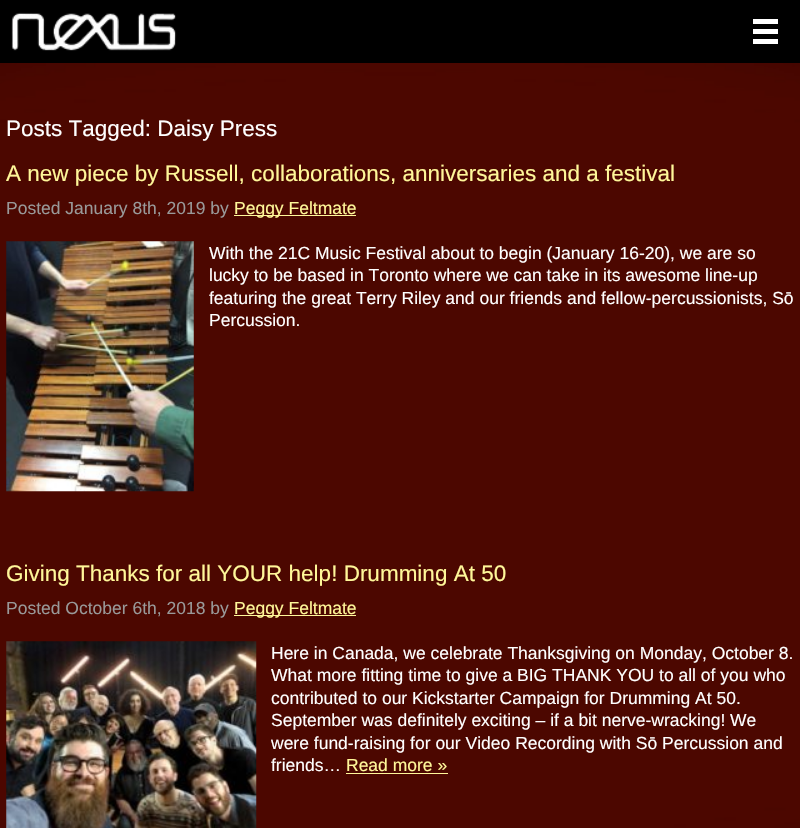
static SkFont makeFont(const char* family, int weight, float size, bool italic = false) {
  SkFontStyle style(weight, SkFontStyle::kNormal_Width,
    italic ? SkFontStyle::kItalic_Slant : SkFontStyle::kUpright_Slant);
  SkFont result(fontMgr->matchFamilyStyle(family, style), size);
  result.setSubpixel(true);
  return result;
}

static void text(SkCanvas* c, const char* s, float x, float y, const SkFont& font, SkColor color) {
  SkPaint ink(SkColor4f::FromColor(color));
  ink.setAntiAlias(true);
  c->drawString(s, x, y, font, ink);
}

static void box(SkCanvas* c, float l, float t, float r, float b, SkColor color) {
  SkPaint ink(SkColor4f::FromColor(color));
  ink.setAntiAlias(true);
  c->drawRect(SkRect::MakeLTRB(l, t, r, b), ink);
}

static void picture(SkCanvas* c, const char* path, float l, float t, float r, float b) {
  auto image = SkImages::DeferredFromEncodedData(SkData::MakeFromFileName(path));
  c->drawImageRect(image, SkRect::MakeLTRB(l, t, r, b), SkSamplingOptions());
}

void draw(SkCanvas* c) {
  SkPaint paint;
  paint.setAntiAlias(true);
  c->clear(0xffffffff);
  picture(c, "img_01.png", 0, 63, 800, 828);
  box(c, 0, 0, 800, 63, 0xff000000);
  box(c, 753, 19, 778, 24, 0xffffffff);
  box(c, 753, 29, 778, 34, 0xffffffff);
  box(c, 753, 39, 778, 44, 0xffffffff);
  picture(c, "img_02.png", 11, 12, 177, 51);
  SkFont face1 = makeFont("Liberation Sans", 400, 22.5f);
  text(c, "Posts Tagged: Daisy Press", 6, 136, face1, 0xffffffff);
  text(c, "A new piece by Russell, collaborations, anniversaries and a festival", 6, 181, face1, 0xfffff799);
  SkFont face2 = makeFont("Liberation Sans", 400, 17.5f);
  text(c, "Posted January 8th, 2019 by", 6, 214, face2, 0xff999999);
  box(c, 234, 215, 356, 216, 0xfffff799);
  text(c, "Peggy Feltmate", 234, 214, face2, 0xfffff799);
  picture(c, "img_03.png", 6, 241, 194, 492);
  text(c, "With the 21C Music Festival about to begin (January 16-20), we are so", 209, 259, face2, 0xffffffff);
  text(c, "lucky to be based in Toronto where we can take in its awesome line-up", 209, 281, face2, 0xffffffff);
  text(c, "featuring the great Terry Riley and our friends and fellow-percussionists, Sō", 209, 304, face2, 0xffffffff);
  text(c, "Percussion.", 209, 326, face2, 0xffffffff);
  text(c, "Giving Thanks for all YOUR help! Drumming At 50", 6, 581, face1, 0xfffff799);
  text(c, "Posted October 6th, 2018 by", 6, 614, face2, 0xff999999);
  box(c, 234, 615, 356, 616, 0xfffff799);
  text(c, "Peggy Feltmate", 234, 614, face2, 0xfffff799);
  picture(c, "img_04.png", 6, 641, 257, 828);
  text(c, "Here in Canada, we celebrate Thanksgiving on Monday, October 8.", 271, 659, face2, 0xffffffff);
  text(c, "What more fitting time to give a BIG THANK YOU to all of you who", 271, 681, face2, 0xffffffff);
  text(c, "contributed to our Kickstarter Campaign for Drumming At 50.", 271, 704, face2, 0xffffffff);
  text(c, "September was definitely exciting – if a bit nerve-wracking! We", 271, 726, face2, 0xffffffff);
  text(c, "were fund-raising for our Video Recording with Sō Percussion and", 271, 749, face2, 0xffffffff);
  text(c, "friends…", 271, 771, face2, 0xffffffff);
  text(c, "Read more »", 346, 771, face2, 0xfffff799);
  box(c, 346, 773, 448, 774, 0xfffff799);
}
